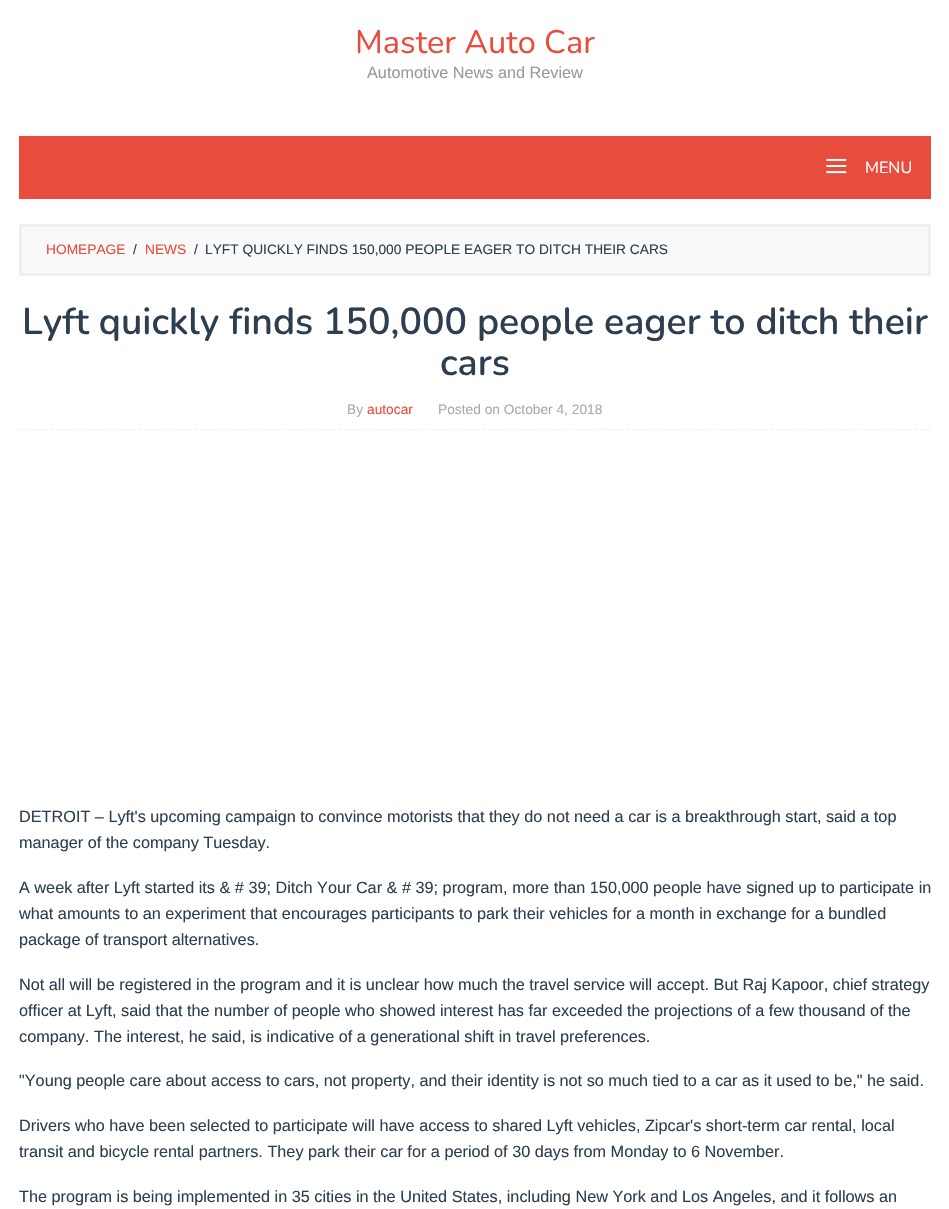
static SkFont makeFont(const char* family, int weight, float size, bool italic = false) {
  SkFontStyle style(weight, SkFontStyle::kNormal_Width,
    italic ? SkFontStyle::kItalic_Slant : SkFontStyle::kUpright_Slant);
  SkFont result(fontMgr->matchFamilyStyle(family, style), size);
  result.setSubpixel(true);
  return result;
}

static void text(SkCanvas* c, const char* s, float x, float y, const SkFont& font, SkColor color) {
  SkPaint ink(SkColor4f::FromColor(color));
  ink.setAntiAlias(true);
  c->drawString(s, x, y, font, ink);
}

static void box(SkCanvas* c, float l, float t, float r, float b, SkColor color) {
  SkPaint ink(SkColor4f::FromColor(color));
  ink.setAntiAlias(true);
  c->drawRect(SkRect::MakeLTRB(l, t, r, b), ink);
}

static void picture(SkCanvas* c, const char* path, float l, float t, float r, float b) {
  auto image = SkImages::DeferredFromEncodedData(SkData::MakeFromFileName(path));
  c->drawImageRect(image, SkRect::MakeLTRB(l, t, r, b), SkSamplingOptions());
}

void draw(SkCanvas* c) {
  SkPaint paint;
  paint.setAntiAlias(true);
  c->clear(0xffffffff);
  SkFont face1 = makeFont("Nunito", 400, 32.5f);
  text(c, "Master Auto Car", 355, 53, face1, 0xffe74c3c);
  SkFont face2 = makeFont("Liberation Sans", 400, 16.25f);
  text(c, "Automotive News and Review", 367, 78, face2, 0xff999999);
  box(c, 19, 136, 931, 199, 0xffe74c3c);
  picture(c, "img_01.png", 826, 158, 847, 174);
  SkFont face3 = makeFont("Nunito", 400, 16.25f);
  text(c, "MENU", 865, 173, face3, 0xffffffff);
  paint.setColor(0xfff9f9f9);
  c->drawRect(SkRect::MakeLTRB(20.5f, 225.5f, 929.5f, 274.5f), paint);
  paint.setStyle(SkPaint::kStroke_Style);
  paint.setStrokeWidth(3);
  paint.setColor(0xffecf0f1);
  c->drawRect(SkRect::MakeLTRB(20.5f, 225.5f, 929.5f, 274.5f), paint);
  SkFont face4 = makeFont("Liberation Sans", 400, 13.75f);
  text(c, "HOMEPAGE", 46, 254, face4, 0xffe74c3c);
  text(c, "/", 133, 254, face4, 0xff2c3e50);
  text(c, "NEWS", 145, 254, face4, 0xffe74c3c);
  text(c, "/", 194, 254, face4, 0xff2c3e50);
  text(c, "LYFT QUICKLY FINDS 150,000 PEOPLE EAGER TO DITCH THEIR CARS", 205, 254, face4, 0xff2c3e50);
  paint.setStrokeWidth(1.2f);
  paint.setPathEffect(SkDashPathEffect::Make({{3.75f, 2.51f}}, 0));
  c->drawPath(SkPathBuilder().moveTo(19, 429.5f).lineTo(931, 429.5f).detach(), paint);
  paint.setPathEffect(nullptr);
  SkFont face5 = makeFont("Nunito", 600, 37.5f);
  text(c, "Lyft quickly finds 150,000 people eager to ditch their", 22, 334, face5, 0xff2c3e50);
  text(c, "cars", 440, 375, face5, 0xff2c3e50);
  text(c, "By", 347, 414, face4, 0xffaaaaaa);
  text(c, "autocar", 367, 414, face4, 0xffe74c3c);
  text(c, "Posted on October 4, 2018", 438, 414, face4, 0xffaaaaaa);
  text(c, "DETROIT – Lyft's upcoming campaign to convince motorists that they do not need a car is a breakthrough start, said a top", 19, 822, face2, 0xff2c3e50);
  text(c, "manager of the company Tuesday.", 19, 848, face2, 0xff2c3e50);
  text(c, "A week after Lyft started its & # 39; Ditch Your Car & # 39; program, more than 150,000 people have signed up to participate in", 19, 893, face2, 0xff2c3e50);
  text(c, "what amounts to an experiment that encourages participants to park their vehicles for a month in exchange for a bundled", 19, 919, face2, 0xff2c3e50);
  text(c, "package of transport alternatives.", 19, 945, face2, 0xff2c3e50);
  text(c, "Not all will be registered in the program and it is unclear how much the travel service will accept. But Raj Kapoor, chief strategy", 19, 990, face2, 0xff2c3e50);
  text(c, "officer at Lyft, said that the number of people who showed interest has far exceeded the projections of a few thousand of the", 19, 1016, face2, 0xff2c3e50);
  text(c, "company. The interest, he said, is indicative of a generational shift in travel preferences.", 19, 1042, face2, 0xff2c3e50);
  text(c, "\"Young people care about access to cars, not property, and their identity is not so much tied to a car as it used to be,\" he said.", 19, 1086, face2, 0xff2c3e50);
  text(c, "Drivers who have been selected to participate will have access to shared Lyft vehicles, Zipcar's short-term car rental, local", 19, 1131, face2, 0xff2c3e50);
  text(c, "transit and bicycle rental partners. They park their car for a period of 30 days from Monday to 6 November.", 19, 1157, face2, 0xff2c3e50);
  text(c, "The program is being implemented in 35 cities in the United States, including New York and Los Angeles, and it follows an", 19, 1202, face2, 0xff2c3e50);
}
